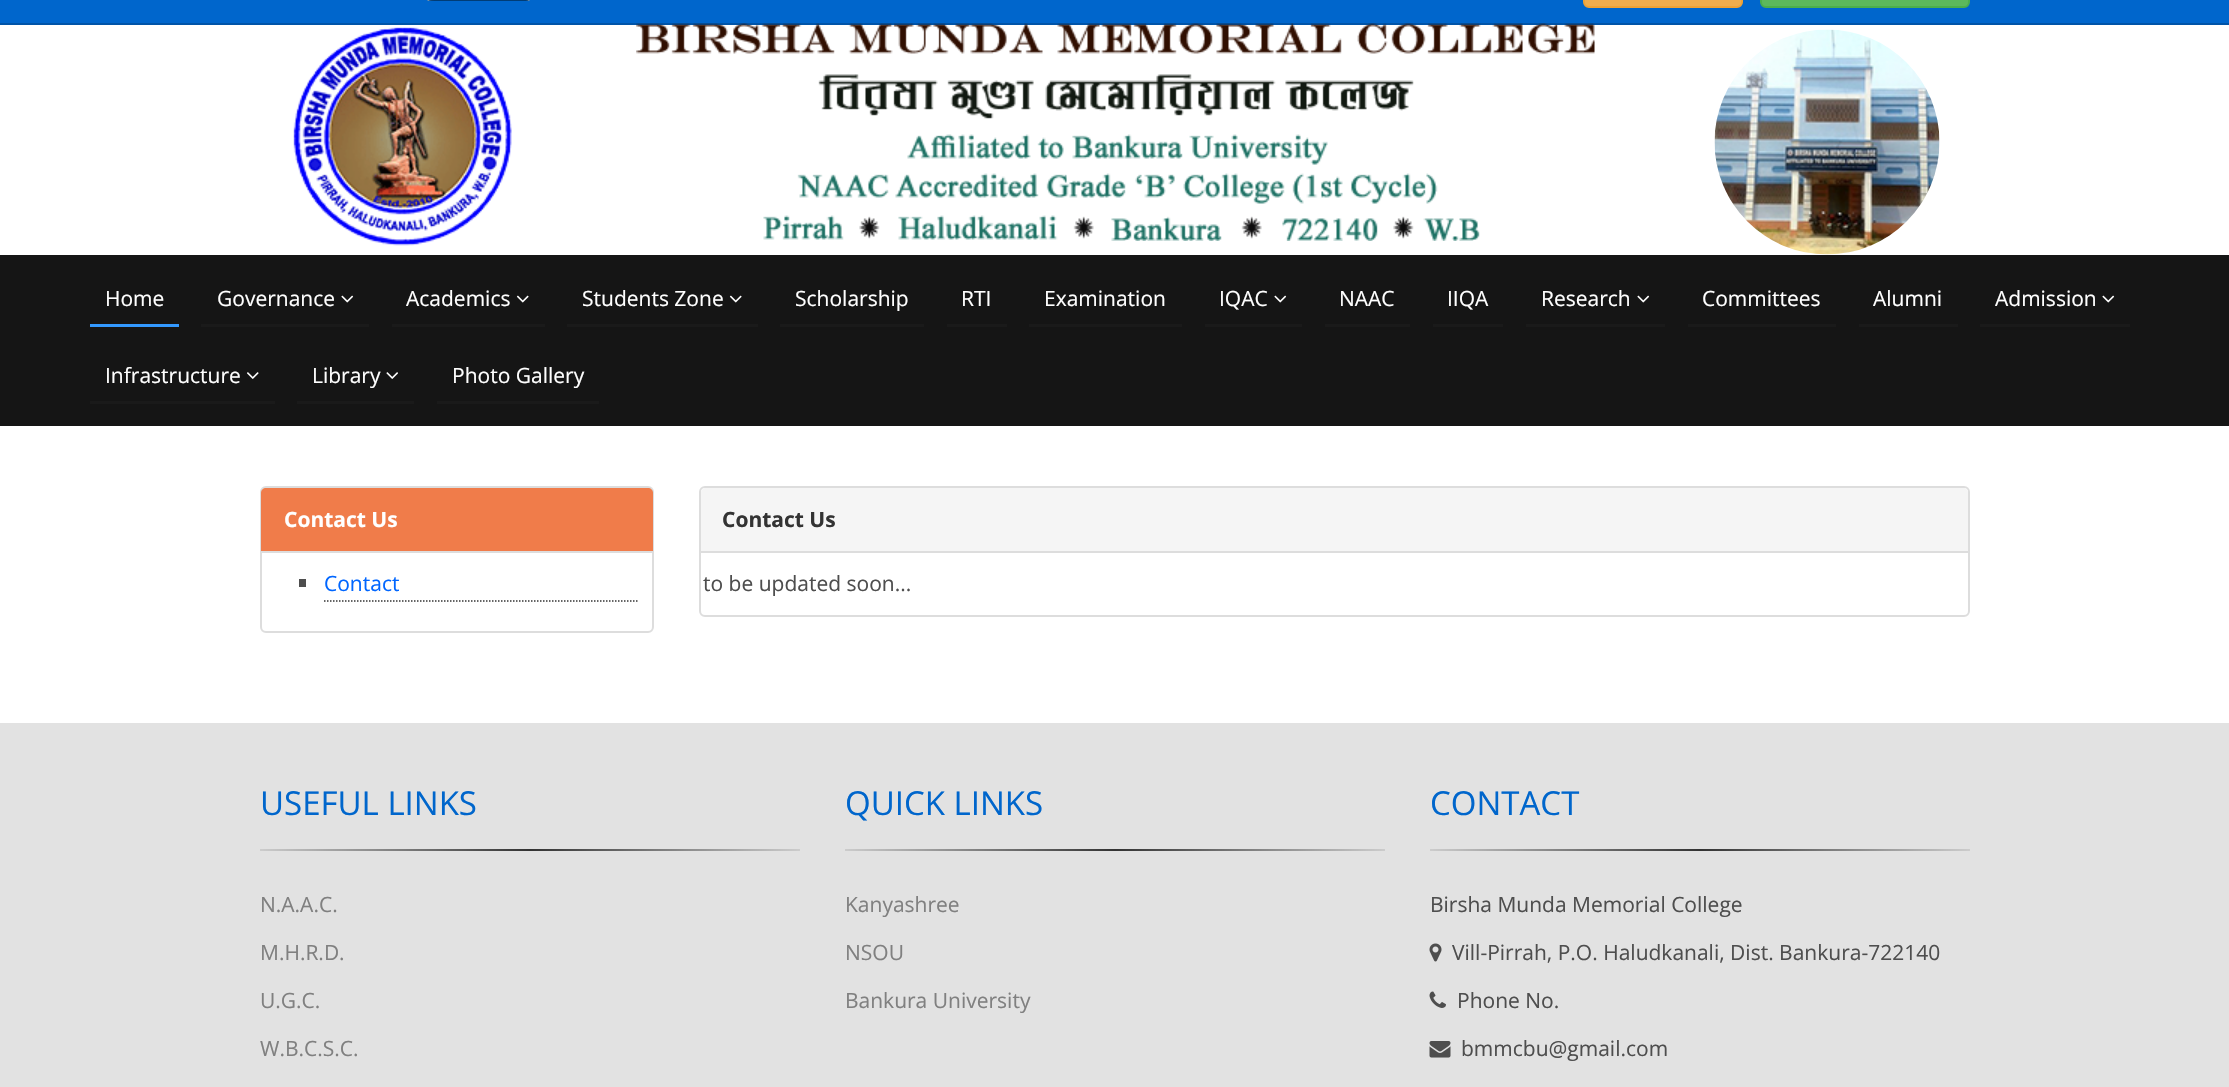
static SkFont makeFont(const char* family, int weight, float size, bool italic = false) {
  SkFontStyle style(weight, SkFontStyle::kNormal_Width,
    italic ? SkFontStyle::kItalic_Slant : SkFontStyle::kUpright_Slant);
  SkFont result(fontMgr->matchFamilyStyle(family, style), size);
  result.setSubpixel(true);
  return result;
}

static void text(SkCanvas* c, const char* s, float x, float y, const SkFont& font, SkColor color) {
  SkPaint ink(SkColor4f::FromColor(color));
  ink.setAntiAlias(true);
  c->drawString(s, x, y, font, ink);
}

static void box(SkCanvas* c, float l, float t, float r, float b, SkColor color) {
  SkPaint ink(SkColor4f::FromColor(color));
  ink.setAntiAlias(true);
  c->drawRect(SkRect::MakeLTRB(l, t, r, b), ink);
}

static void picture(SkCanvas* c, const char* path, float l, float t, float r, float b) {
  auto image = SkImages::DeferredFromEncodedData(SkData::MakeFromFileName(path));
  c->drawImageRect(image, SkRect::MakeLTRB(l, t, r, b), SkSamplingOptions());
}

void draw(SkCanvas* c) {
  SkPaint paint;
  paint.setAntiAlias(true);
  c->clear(0xffffffff);
  box(c, 0, 0, 2229, 23, 0xff0066cc);
  box(c, 0, 23, 2229, 25, 0xff0054a8);
  picture(c, "img_01.png", 427, 0, 530, 1);
  paint.setColor(0xfff0ad4e);
  c->drawRoundRect(SkRect::MakeLTRB(1584, -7, 1742, 7), 5, 5, paint);
  paint.setStyle(SkPaint::kStroke_Style);
  paint.setStrokeWidth(2);
  paint.setColor(0xffeea236);
  c->drawRoundRect(SkRect::MakeLTRB(1584, -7, 1742, 7), 5, 5, paint);
  paint.setStyle(SkPaint::kFill_Style);
  paint.setColor(0xff5cb85c);
  c->drawRoundRect(SkRect::MakeLTRB(1761, -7, 1969, 7), 5, 5, paint);
  paint.setStyle(SkPaint::kStroke_Style);
  paint.setColor(0xff4cae4c);
  c->drawRoundRect(SkRect::MakeLTRB(1761, -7, 1969, 7), 5, 5, paint);
  picture(c, "img_02.png", 293, 27, 512, 246);
  picture(c, "img_03.png", 636, 23, 1595, 241);
  picture(c, "img_04.png", 1714, 29, 1940, 255);
  box(c, 0, 255, 2229, 426, 0xff151515);
  box(c, 90, 324, 179, 327, 0xff3399ff);
  SkFont face1 = makeFont("Open Sans", 400, 21);
  text(c, "Home", 105, 306, face1, 0xffffffff);
  box(c, 201, 324, 369, 327, 0xff1a1a1a);
  text(c, "Governance", 217, 306, face1, 0xffffffff);
  picture(c, "img_05.png", 341, 295, 354, 303);
  box(c, 392, 324, 545, 327, 0xff1a1a1a);
  text(c, "Academics", 406, 306, face1, 0xffffffff);
  picture(c, "img_06.png", 516, 295, 529, 303);
  box(c, 567, 324, 758, 327, 0xff1a1a1a);
  text(c, "Students Zone", 582, 306, face1, 0xffffffff);
  picture(c, "img_06.png", 729, 295, 742, 303);
  box(c, 780, 324, 924, 327, 0xff1a1a1a);
  text(c, "Scholarship", 795, 306, face1, 0xffffffff);
  box(c, 947, 324, 1007, 327, 0xff1a1a1a);
  text(c, "RTI", 961, 306, face1, 0xffffffff);
  box(c, 1029, 324, 1182, 327, 0xff1a1a1a);
  text(c, "Examination", 1044, 306, face1, 0xffffffff);
  box(c, 1205, 324, 1302, 327, 0xff1a1a1a);
  text(c, "IQAC", 1219, 306, face1, 0xffffffff);
  picture(c, "img_05.png", 1274, 295, 1287, 303);
  box(c, 1325, 324, 1410, 327, 0xff1a1a1a);
  text(c, "NAAC", 1339, 306, face1, 0xffffffff);
  box(c, 1433, 324, 1503, 327, 0xff1a1a1a);
  text(c, "IIQA", 1447, 306, face1, 0xffffffff);
  box(c, 1526, 324, 1665, 327, 0xff1a1a1a);
  text(c, "Research", 1541, 306, face1, 0xffffffff);
  picture(c, "img_05.png", 1637, 295, 1650, 303);
  box(c, 1688, 324, 1836, 327, 0xff1a1a1a);
  text(c, "Committees", 1702, 306, face1, 0xffffffff);
  box(c, 1859, 324, 1958, 327, 0xff1a1a1a);
  text(c, "Alumni", 1873, 306, face1, 0xffffffff);
  box(c, 1980, 324, 2130, 327, 0xff1a1a1a);
  text(c, "Admission", 1995, 306, face1, 0xffffffff);
  picture(c, "img_05.png", 2102, 295, 2115, 303);
  box(c, 90, 401, 275, 404, 0xff1a1a1a);
  text(c, "Infrastructure", 105, 383, face1, 0xffffffff);
  picture(c, "img_07.png", 247, 372, 259, 379);
  box(c, 297, 401, 414, 404, 0xff1a1a1a);
  text(c, "Library", 312, 383, face1, 0xffffffff);
  picture(c, "img_08.png", 386, 372, 398, 379);
  box(c, 437, 401, 599, 404, 0xff1a1a1a);
  text(c, "Photo Gallery", 452, 383, face1, 0xffffffff);
  paint.setColor(0xffdddddd);
  c->drawRoundRect(SkRect::MakeLTRB(261, 487, 653, 632), 5, 5, paint);
  paint.setStyle(SkPaint::kFill_Style);
  paint.setColor(0xfff07c4a);
  c->drawPath(SkPathBuilder().moveTo(266, 488).lineTo(648, 488).cubicTo(651, 488, 653, 490, 653, 493).lineTo(653, 552).lineTo(261, 552).lineTo(261, 493).cubicTo(261, 490, 263, 488, 266, 488).close().detach(), paint);
  box(c, 261, 551, 653, 553, 0xffdddddd);
  SkFont face2 = makeFont("Open Sans", 700, 21);
  text(c, "Contact Us", 284, 527, face2, 0xffffffff);
  paint.setStyle(SkPaint::kStroke_Style);
  paint.setStrokeWidth(1.5f);
  paint.setColor(0xff333333);
  paint.setPathEffect(SkDashPathEffect::Make({{1.5f, 1.5f}}, 0));
  c->drawPath(SkPathBuilder().moveTo(324, 601).lineTo(637.5f, 601).detach(), paint);
  paint.setPathEffect(nullptr);
  box(c, 299, 579, 306, 587, 0xff4e4e4e);
  text(c, "Contact", 324, 591, face1, 0xff0066ff);
  paint.setStrokeWidth(2);
  paint.setColor(0xffdddddd);
  c->drawRoundRect(SkRect::MakeLTRB(700, 487, 1969, 616), 5, 5, paint);
  paint.setStyle(SkPaint::kFill_Style);
  paint.setColor(0xfff5f5f5);
  c->drawPath(SkPathBuilder().moveTo(706, 488).lineTo(1963, 488).cubicTo(1966, 488, 1968, 490, 1968, 493).lineTo(1968, 552).lineTo(701, 552).lineTo(701, 493).cubicTo(701, 490, 703, 488, 706, 488).close().detach(), paint);
  box(c, 701, 551, 1968, 553, 0xffdddddd);
  text(c, "Contact Us", 722, 527, face2, 0xff333333);
  text(c, "to be updated soon...", 703, 591, face1, 0xff4e4e4e);
  box(c, 0, 723, 2229, 1087, 0xffe2e2e2);
  SkFont face3 = makeFont("Open Sans", 400, 33);
  text(c, "USEFUL LINKS", 260, 815, face3, 0xff0066cc);
  {
    const SkColor colors[] = {0xffcccccc, 0xff333333, 0xffcccccc};
    const float stops[] = {0, 0.5f, 1};
    const SkPoint ends[] = {{260, 850}, {800, 850}};
    paint.setShader(SkGradientShader::MakeLinear(ends, colors, stops, 3, SkTileMode::kClamp));
    paint.setAlpha(255);
  }
  c->drawRect(SkRect::MakeLTRB(260, 849, 800, 851), paint);
  text(c, "N.A.A.C.", 260, 912, face1, 0xff808080);
  text(c, "M.H.R.D.", 260, 960, face1, 0xff808080);
  text(c, "U.G.C.", 260, 1008, face1, 0xff808080);
  text(c, "W.B.C.S.C.", 260, 1056, face1, 0xff808080);
  text(c, "QUICK LINKS", 845, 815, face3, 0xff0066cc);
  {
    const SkColor colors[] = {0xffcccccc, 0xff333333, 0xffcccccc};
    const float stops[] = {0, 0.5f, 1};
    const SkPoint ends[] = {{845, 850}, {1385, 850}};
    paint.setShader(SkGradientShader::MakeLinear(ends, colors, stops, 3, SkTileMode::kClamp));
    paint.setAlpha(255);
  }
  c->drawRect(SkRect::MakeLTRB(845, 849, 1385, 851), paint);
  text(c, "Kanyashree", 845, 912, face1, 0xff808080);
  text(c, "NSOU", 845, 960, face1, 0xff808080);
  text(c, "Bankura University", 845, 1008, face1, 0xff808080);
  text(c, "CONTACT", 1430, 815, face3, 0xff0066cc);
  {
    const SkColor colors[] = {0xffcccccc, 0xff333333, 0xffcccccc};
    const float stops[] = {0, 0.5f, 1};
    const SkPoint ends[] = {{1430, 850}, {1970, 850}};
    paint.setShader(SkGradientShader::MakeLinear(ends, colors, stops, 3, SkTileMode::kClamp));
    paint.setAlpha(255);
  }
  c->drawRect(SkRect::MakeLTRB(1430, 849, 1970, 851), paint);
  text(c, "Birsha Munda Memorial College", 1430, 912, face1, 0xff4e4e4e);
  picture(c, "img_09.png", 1429, 943, 1442, 962);
  text(c, "Vill-Pirrah, P.O. Haludkanali, Dist. Bankura-722140", 1452, 960, face1, 0xff4e4e4e);
  picture(c, "img_10.png", 1429, 991, 1446, 1008);
  text(c, "Phone No.", 1457, 1008, face1, 0xff4e4e4e);
  picture(c, "img_11.png", 1429, 1041, 1451, 1058);
  text(c, "bmmcbu@gmail.com", 1461, 1056, face1, 0xff4e4e4e);
}
